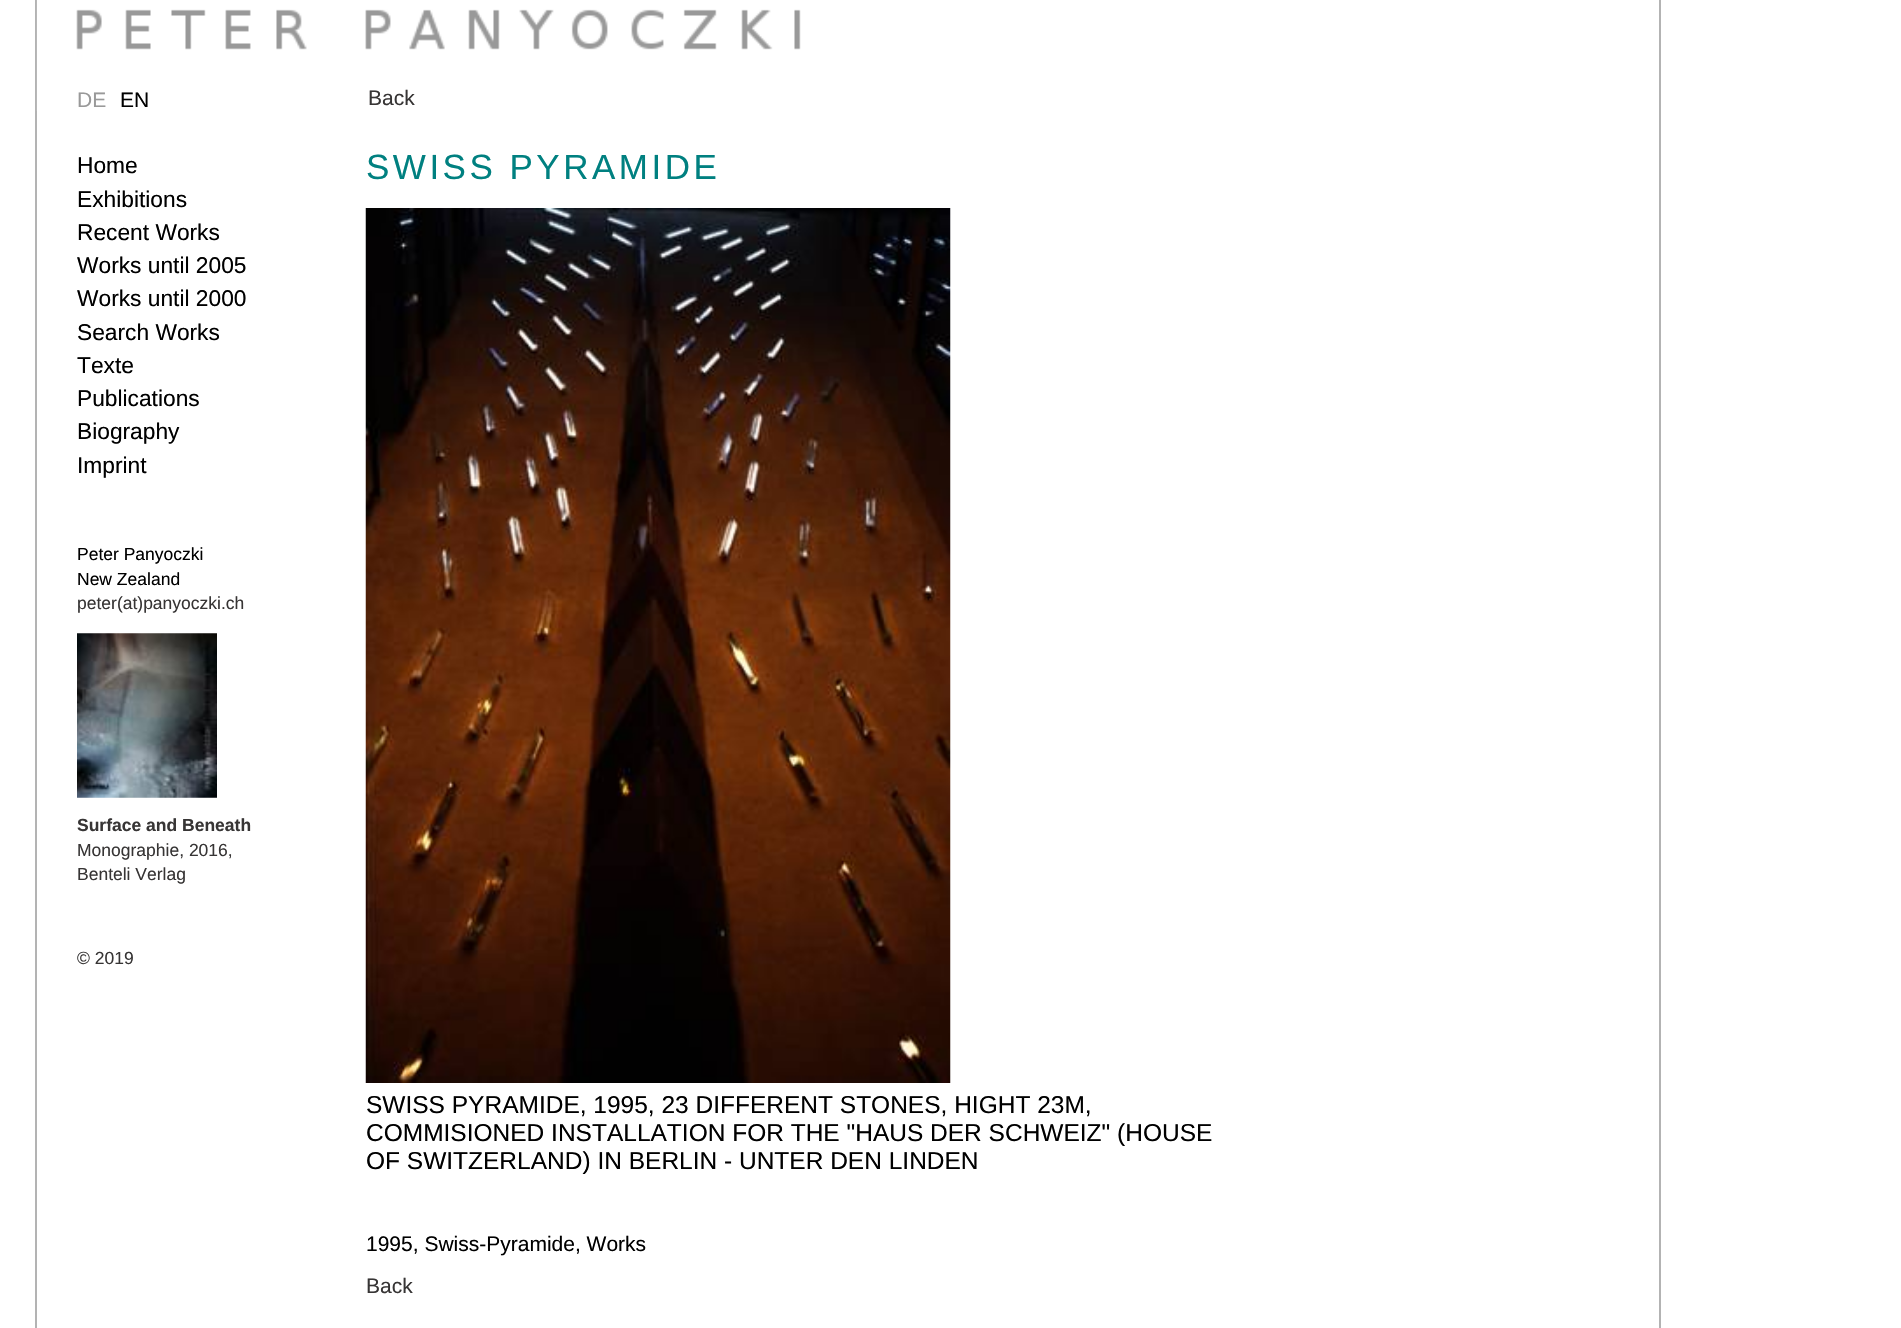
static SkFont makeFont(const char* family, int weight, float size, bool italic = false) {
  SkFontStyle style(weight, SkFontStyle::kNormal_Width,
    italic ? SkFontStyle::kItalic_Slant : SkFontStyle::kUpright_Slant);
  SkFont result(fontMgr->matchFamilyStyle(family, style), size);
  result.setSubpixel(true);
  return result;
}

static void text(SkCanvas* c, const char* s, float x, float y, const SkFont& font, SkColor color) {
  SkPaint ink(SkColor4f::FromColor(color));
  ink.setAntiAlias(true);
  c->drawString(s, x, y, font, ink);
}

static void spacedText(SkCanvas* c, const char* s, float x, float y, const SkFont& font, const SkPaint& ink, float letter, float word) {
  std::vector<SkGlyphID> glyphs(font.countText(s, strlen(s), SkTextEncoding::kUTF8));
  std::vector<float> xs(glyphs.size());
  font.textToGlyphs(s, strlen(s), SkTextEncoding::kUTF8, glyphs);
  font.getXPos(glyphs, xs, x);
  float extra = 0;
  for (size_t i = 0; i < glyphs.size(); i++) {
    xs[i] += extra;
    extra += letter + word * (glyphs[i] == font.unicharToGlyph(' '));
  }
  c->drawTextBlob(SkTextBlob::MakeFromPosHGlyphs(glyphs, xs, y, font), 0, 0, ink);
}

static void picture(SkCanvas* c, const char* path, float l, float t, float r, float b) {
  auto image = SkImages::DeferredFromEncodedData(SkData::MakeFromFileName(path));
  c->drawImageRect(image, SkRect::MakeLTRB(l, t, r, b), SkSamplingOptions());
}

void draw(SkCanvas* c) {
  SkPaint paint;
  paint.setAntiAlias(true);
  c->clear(0xffffffff);
  paint.setStyle(SkPaint::kStroke_Style);
  paint.setStrokeWidth(2);
  paint.setColor(0xffb3b3b3);
  c->drawRect(SkRect::MakeLTRB(36, -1, 1660, 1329), paint);
  picture(c, "img_01.png", 36, 0, 801, 111);
  SkFont face1 = makeFont("Liberation Sans", 400, 22.75f);
  text(c, "Home", 77, 173, face1, 0xff000000);
  text(c, "Exhibitions", 77, 207, face1, 0xff000000);
  text(c, "Recent Works", 77, 240, face1, 0xff000000);
  text(c, "Works until 2005", 77, 273, face1, 0xff000000);
  text(c, "Works until 2000", 77, 306, face1, 0xff000000);
  text(c, "Search Works", 77, 340, face1, 0xff000000);
  text(c, "Texte", 77, 373, face1, 0xff000000);
  text(c, "Publications", 77, 406, face1, 0xff000000);
  text(c, "Biography", 77, 439, face1, 0xff000000);
  text(c, "Imprint", 77, 473, face1, 0xff000000);
  SkFont face2 = makeFont("Liberation Sans", 400, 17.5f);
  text(c, "Peter Panyoczki", 77, 560, face2, 0xff000000);
  text(c, "New Zealand", 77, 585, face2, 0xff000000);
  text(c, "peter(at)panyoczki.ch", 77, 609, face2, 0xff373535);
  picture(c, "img_02.png", 77, 633, 217, 798);
  SkFont face3 = makeFont("Liberation Sans", 700, 17.5f);
  text(c, "Surface and Beneath", 77, 831, face3, 0xff373535);
  text(c, "Monographie, 2016,", 77, 856, face2, 0xff373535);
  text(c, "Benteli Verlag", 77, 880, face2, 0xff373535);
  text(c, "© 2019", 77, 964, face2, 0xff373535);
  SkFont face4 = makeFont("Liberation Sans", 400, 21);
  text(c, "Back", 368, 105, face4, 0xff373535);
  SkFont face5 = makeFont("Liberation Sans", 400, 35);
  paint.setStyle(SkPaint::kFill_Style);
  paint.setColor(0xff008080);
  spacedText(c, "SWISS PYRAMIDE", 366, 179, face5, paint, 3.5f, 0);
  picture(c, "img_03.png", 365, 208, 951, 1083);
  SkFont face6 = makeFont("Liberation Sans", 400, 24.5f);
  text(c, "SWISS PYRAMIDE, 1995, 23 DIFFERENT STONES, HIGHT 23M,", 366, 1113, face6, 0xff000000);
  text(c, "COMMISIONED INSTALLATION FOR THE \"HAUS DER SCHWEIZ\" (HOUSE", 366, 1141, face6, 0xff000000);
  text(c, "OF SWITZERLAND) IN BERLIN - UNTER DEN LINDEN", 366, 1169, face6, 0xff000000);
  text(c, "1995, Swiss-Pyramide, Works", 366, 1251, face4, 0xff000000);
  text(c, "Back", 366, 1293, face4, 0xff373535);
  text(c, "DE", 77, 107, face4, 0xff999999);
  text(c, "EN", 120, 107, face4, 0xff000000);
}
